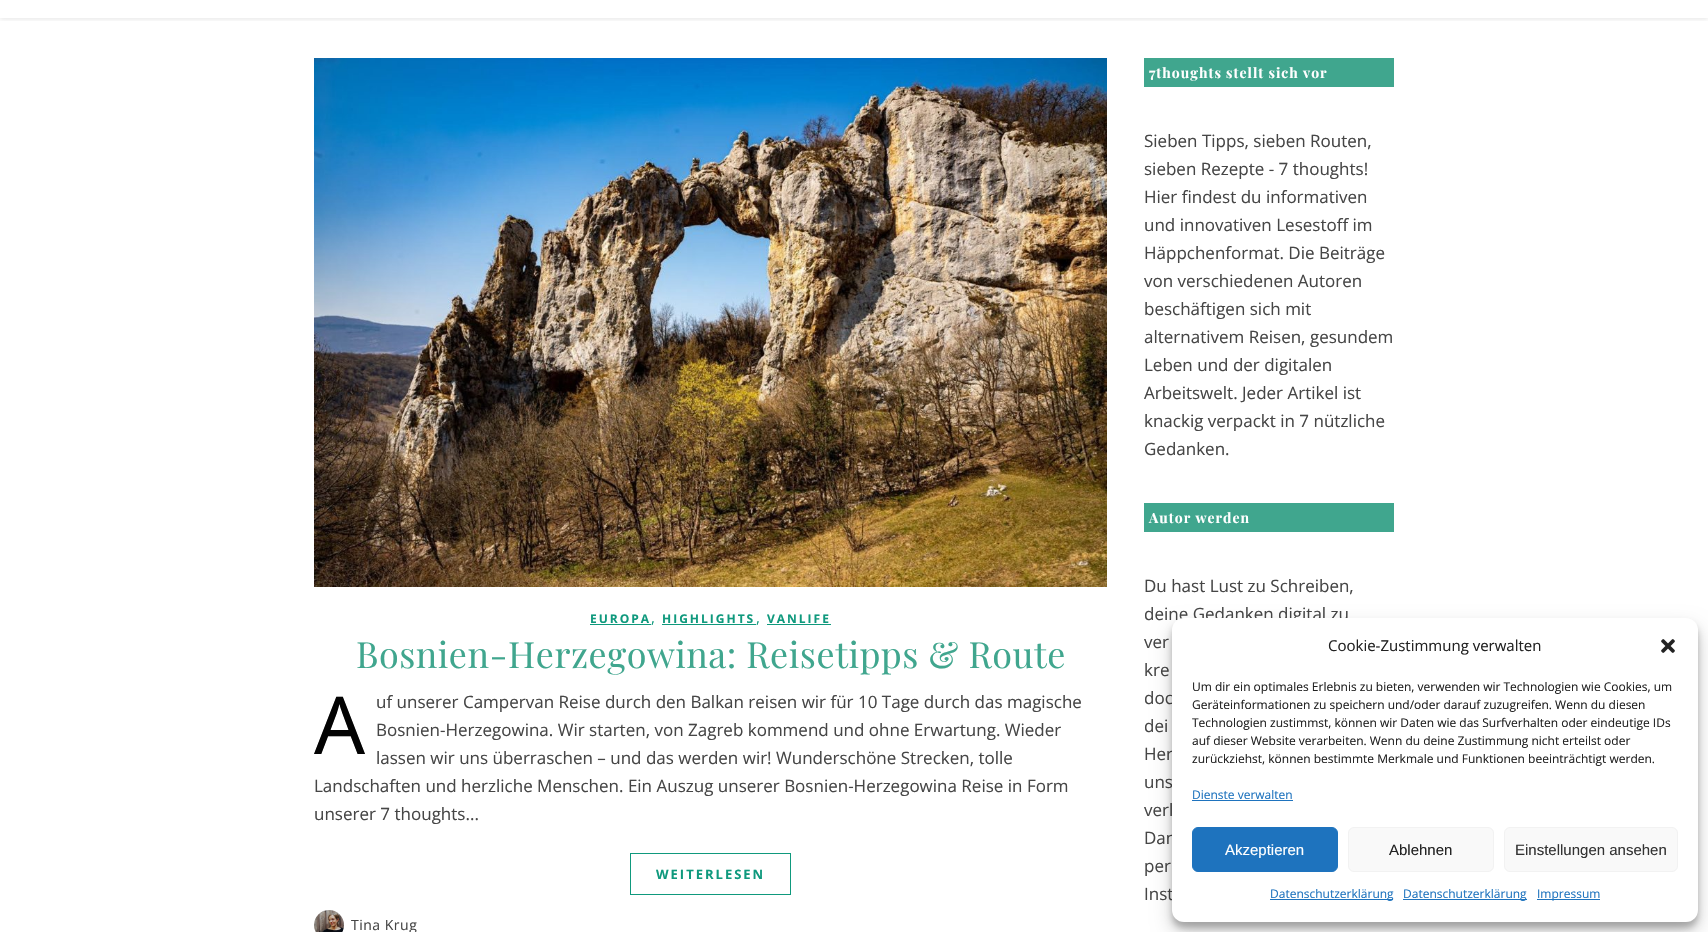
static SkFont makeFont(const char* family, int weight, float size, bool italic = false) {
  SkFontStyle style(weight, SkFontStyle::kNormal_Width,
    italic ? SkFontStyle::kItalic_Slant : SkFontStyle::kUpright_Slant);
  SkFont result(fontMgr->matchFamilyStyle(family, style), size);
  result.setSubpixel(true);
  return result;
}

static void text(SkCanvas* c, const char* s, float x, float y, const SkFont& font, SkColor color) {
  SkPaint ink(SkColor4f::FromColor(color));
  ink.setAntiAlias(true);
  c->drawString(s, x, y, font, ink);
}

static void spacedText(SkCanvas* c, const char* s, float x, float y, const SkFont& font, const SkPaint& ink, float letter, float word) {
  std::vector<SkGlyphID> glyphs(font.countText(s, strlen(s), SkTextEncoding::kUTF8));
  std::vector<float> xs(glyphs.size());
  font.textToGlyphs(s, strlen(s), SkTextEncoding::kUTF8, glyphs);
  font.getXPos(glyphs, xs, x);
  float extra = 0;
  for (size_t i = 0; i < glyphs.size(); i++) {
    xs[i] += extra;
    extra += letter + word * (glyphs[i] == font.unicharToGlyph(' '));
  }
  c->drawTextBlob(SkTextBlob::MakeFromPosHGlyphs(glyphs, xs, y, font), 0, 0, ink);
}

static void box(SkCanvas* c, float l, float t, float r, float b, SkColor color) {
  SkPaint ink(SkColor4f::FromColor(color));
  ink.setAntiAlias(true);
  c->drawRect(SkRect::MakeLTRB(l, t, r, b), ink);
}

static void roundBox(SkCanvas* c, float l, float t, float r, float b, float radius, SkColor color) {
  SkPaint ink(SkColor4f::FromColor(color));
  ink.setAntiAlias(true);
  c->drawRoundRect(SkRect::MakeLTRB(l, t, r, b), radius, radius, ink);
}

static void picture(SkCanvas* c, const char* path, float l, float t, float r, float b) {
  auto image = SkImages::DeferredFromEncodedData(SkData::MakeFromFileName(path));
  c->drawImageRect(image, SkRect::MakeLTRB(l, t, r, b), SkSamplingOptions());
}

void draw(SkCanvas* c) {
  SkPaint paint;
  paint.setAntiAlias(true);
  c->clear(0xffffffff);
  c->save();
  c->clipRect(SkRect::MakeLTRB(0, 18, 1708, 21));
  paint.setColor(0x1a000000);
  paint.setMaskFilter(SkMaskFilter::MakeBlur(kNormal_SkBlurStyle, 2.5f));
  c->drawRect(SkRect::MakeLTRB(0, -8, 1708, 19), paint);
  paint.setMaskFilter(nullptr);
  c->restore();
  picture(c, "img_01.png", 314, 58, 1107, 587);
  SkFont face1 = makeFont("Open Sans", 700, 12);
  paint.setColor(0xff0f997d);
  spacedText(c, "EUROPA", 590, 623, face1, paint, 2, 0);
  box(c, 590, 624, 651, 625, 0xff0f997d);
  SkFont face2 = makeFont("Open Sans", 400, 15);
  text(c, ",", 651, 623, face2, 0xff0f997d);
  spacedText(c, "HIGHLIGHTS", 662, 623, face1, paint, 2, 0);
  box(c, 662, 624, 756, 625, 0xff0f997d);
  text(c, ",", 756, 623, face2, 0xff0f997d);
  spacedText(c, "VANLIFE", 767, 623, face1, paint, 2, 0);
  box(c, 767, 624, 831, 625, 0xff0f997d);
  SkFont face3 = makeFont("Playfair Display", 400, 36);
  paint.setColor(0xff40a68e);
  spacedText(c, "Bosnien-Herzegowina: Reisetipps & Route", 356, 668, face3, paint, 0.5f, 0);
  SkFont face4 = makeFont("Noto Sans", 400, 80);
  text(c, "A", 314, 754, face4, 0xff030303);
  SkFont face5 = makeFont("Open Sans", 400, 17);
  text(c, "uf unserer Campervan Reise durch den Balkan reisen wir für 10 Tage durch das magische", 376, 708, face5, 0xff464646);
  text(c, "Bosnien-Herzegowina. Wir starten, von Zagreb kommend und ohne Erwartung. Wieder", 376, 736, face5, 0xff464646);
  text(c, "lassen wir uns überraschen – und das werden wir! Wunderschöne Strecken, tolle", 376, 764, face5, 0xff464646);
  text(c, "Landschaften und herzliche Menschen. Ein Auszug unserer Bosnien-Herzegowina Reise in Form", 314, 792, face5, 0xff464646);
  text(c, "unserer 7 thoughts...", 314, 820, face5, 0xff464646);
  paint.setStyle(SkPaint::kStroke_Style);
  paint.setStrokeWidth(1);
  paint.setColor(0xff0f997d);
  c->drawRect(SkRect::MakeLTRB(630.5f, 853.5f, 790.5f, 894.5f), paint);
  SkFont face6 = makeFont("Open Sans", 700, 13);
  paint.setStyle(SkPaint::kFill_Style);
  spacedText(c, "WEITERLESEN", 656, 879, face6, paint, 2, 0);
  picture(c, "img_02.png", 314, 910, 344, 932);
  SkFont face7 = makeFont("Open Sans", 400, 14);
  paint.setColor(0xff464646);
  spacedText(c, "Tina Krug", 351, 930, face7, paint, 0.5f, 0);
  box(c, 1144, 58, 1394, 87, 0xff40a68e);
  SkFont face8 = makeFont("Playfair Display", 700, 14);
  paint.setColor(0xffffffff);
  spacedText(c, "7thoughts stellt sich vor", 1149, 78, face8, paint, 1, 0);
  text(c, "Sieben Tipps, sieben Routen,", 1144, 147, face5, 0xff464646);
  text(c, "sieben Rezepte - 7 thoughts!", 1144, 175, face5, 0xff464646);
  text(c, "Hier findest du informativen", 1144, 203, face5, 0xff464646);
  text(c, "und innovativen Lesestoff im", 1144, 231, face5, 0xff464646);
  text(c, "Häppchenformat. Die Beiträge", 1144, 259, face5, 0xff464646);
  text(c, "von verschiedenen Autoren", 1144, 287, face5, 0xff464646);
  text(c, "beschäftigen sich mit", 1144, 315, face5, 0xff464646);
  text(c, "alternativem Reisen, gesundem", 1144, 343, face5, 0xff464646);
  text(c, "Leben und der digitalen", 1144, 371, face5, 0xff464646);
  text(c, "Arbeitswelt. Jeder Artikel ist", 1144, 399, face5, 0xff464646);
  text(c, "knackig verpackt in 7 nützliche", 1144, 427, face5, 0xff464646);
  text(c, "Gedanken.", 1144, 455, face5, 0xff464646);
  box(c, 1144, 503, 1394, 532, 0xff40a68e);
  spacedText(c, "Autor werden", 1149, 523, face8, paint, 1, 0);
  text(c, "Du hast Lust zu Schreiben,", 1144, 592, face5, 0xff464646);
  text(c, "deine Gedanken digital zu", 1144, 620, face5, 0xff464646);
  text(c, "ver", 1144, 648, face5, 0xff464646);
  text(c, "kre", 1144, 676, face5, 0xff464646);
  text(c, "doc", 1144, 704, face5, 0xff464646);
  text(c, "dei", 1144, 732, face5, 0xff464646);
  text(c, "Her", 1144, 760, face5, 0xff464646);
  text(c, "uns", 1144, 788, face5, 0xff464646);
  text(c, "verl", 1144, 816, face5, 0xff464646);
  text(c, "Dan", 1144, 844, face5, 0xff464646);
  text(c, "per", 1144, 872, face5, 0xff464646);
  text(c, "Inst", 1144, 900, face5, 0xff464646);
  paint.setColor(0x3b000000);
  paint.setMaskFilter(SkMaskFilter::MakeBlur(kNormal_SkBlurStyle, 3));
  c->drawRoundRect(SkRect::MakeLTRB(1172, 624, 1698, 928), 12, 12, paint);
  paint.setMaskFilter(nullptr);
  paint.setColor(0x30000000);
  paint.setMaskFilter(SkMaskFilter::MakeBlur(kNormal_SkBlurStyle, 10));
  c->drawRoundRect(SkRect::MakeLTRB(1172, 628, 1698, 932), 12, 12, paint);
  paint.setMaskFilter(nullptr);
  roundBox(c, 1172, 618, 1698, 922, 12, 0xffffffff);
  text(c, "Cookie-Zustimmung verwalten", 1328, 651, face2, 0xff222222);
  picture(c, "img_03.png", 1661, 639, 1675, 653);
  SkFont face9 = makeFont("Open Sans", 400, 12);
  text(c, "Um dir ein optimales Erlebnis zu bieten, verwenden wir Technologien wie Cookies, um", 1192, 691, face9, 0xff222222);
  text(c, "Geräteinformationen zu speichern und/oder darauf zuzugreifen. Wenn du diesen", 1192, 709, face9, 0xff222222);
  text(c, "Technologien zustimmst, können wir Daten wie das Surfverhalten oder eindeutige IDs", 1192, 727, face9, 0xff222222);
  text(c, "auf dieser Website verarbeiten. Wenn du deine Zustimmung nicht erteilst oder", 1192, 745, face9, 0xff222222);
  text(c, "zurückziehst, können bestimmte Merkmale und Funktionen beeinträchtigt werden.", 1192, 763, face9, 0xff222222);
  text(c, "Dienste verwalten", 1192, 799, face9, 0xff1e73be);
  box(c, 1192, 800, 1293, 801, 0xff1e73be);
  paint.setColor(0xff1e73be);
  c->drawRoundRect(SkRect::MakeLTRB(1192.5f, 827.5f, 1337.5f, 871.5f), 5.5f, 5.5f, paint);
  paint.setStyle(SkPaint::kStroke_Style);
  c->drawRoundRect(SkRect::MakeLTRB(1192.5f, 827.5f, 1337.5f, 871.5f), 5.5f, 5.5f, paint);
  SkFont face10 = makeFont("Liberation Sans", 400, 15);
  text(c, "Akzeptieren", 1225, 855, face10, 0xffffffff);
  paint.setStyle(SkPaint::kFill_Style);
  paint.setColor(0xfff9f9f9);
  c->drawRoundRect(SkRect::MakeLTRB(1348.5f, 827.5f, 1493.5f, 871.5f), 5.5f, 5.5f, paint);
  paint.setStyle(SkPaint::kStroke_Style);
  paint.setColor(0xfff2f2f2);
  c->drawRoundRect(SkRect::MakeLTRB(1348.5f, 827.5f, 1493.5f, 871.5f), 5.5f, 5.5f, paint);
  text(c, "Ablehnen", 1389, 855, face10, 0xff222222);
  paint.setStyle(SkPaint::kFill_Style);
  paint.setColor(0xfff9f9f9);
  c->drawRoundRect(SkRect::MakeLTRB(1504.5f, 827.5f, 1677.5f, 871.5f), 5.5f, 5.5f, paint);
  paint.setStyle(SkPaint::kStroke_Style);
  paint.setColor(0xfff2f2f2);
  c->drawRoundRect(SkRect::MakeLTRB(1504.5f, 827.5f, 1677.5f, 871.5f), 5.5f, 5.5f, paint);
  text(c, "Einstellungen ansehen", 1515, 855, face10, 0xff333333);
  box(c, 1270, 899, 1393, 900, 0xff1e73be);
  text(c, "Datenschutzerklärung", 1270, 898, face9, 0xff1e73be);
  box(c, 1403, 899, 1527, 900, 0xff1e73be);
  text(c, "Datenschutzerklärung", 1403, 898, face9, 0xff1e73be);
  box(c, 1537, 899, 1600, 900, 0xff1e73be);
  text(c, "Impressum", 1537, 898, face9, 0xff1e73be);
}
